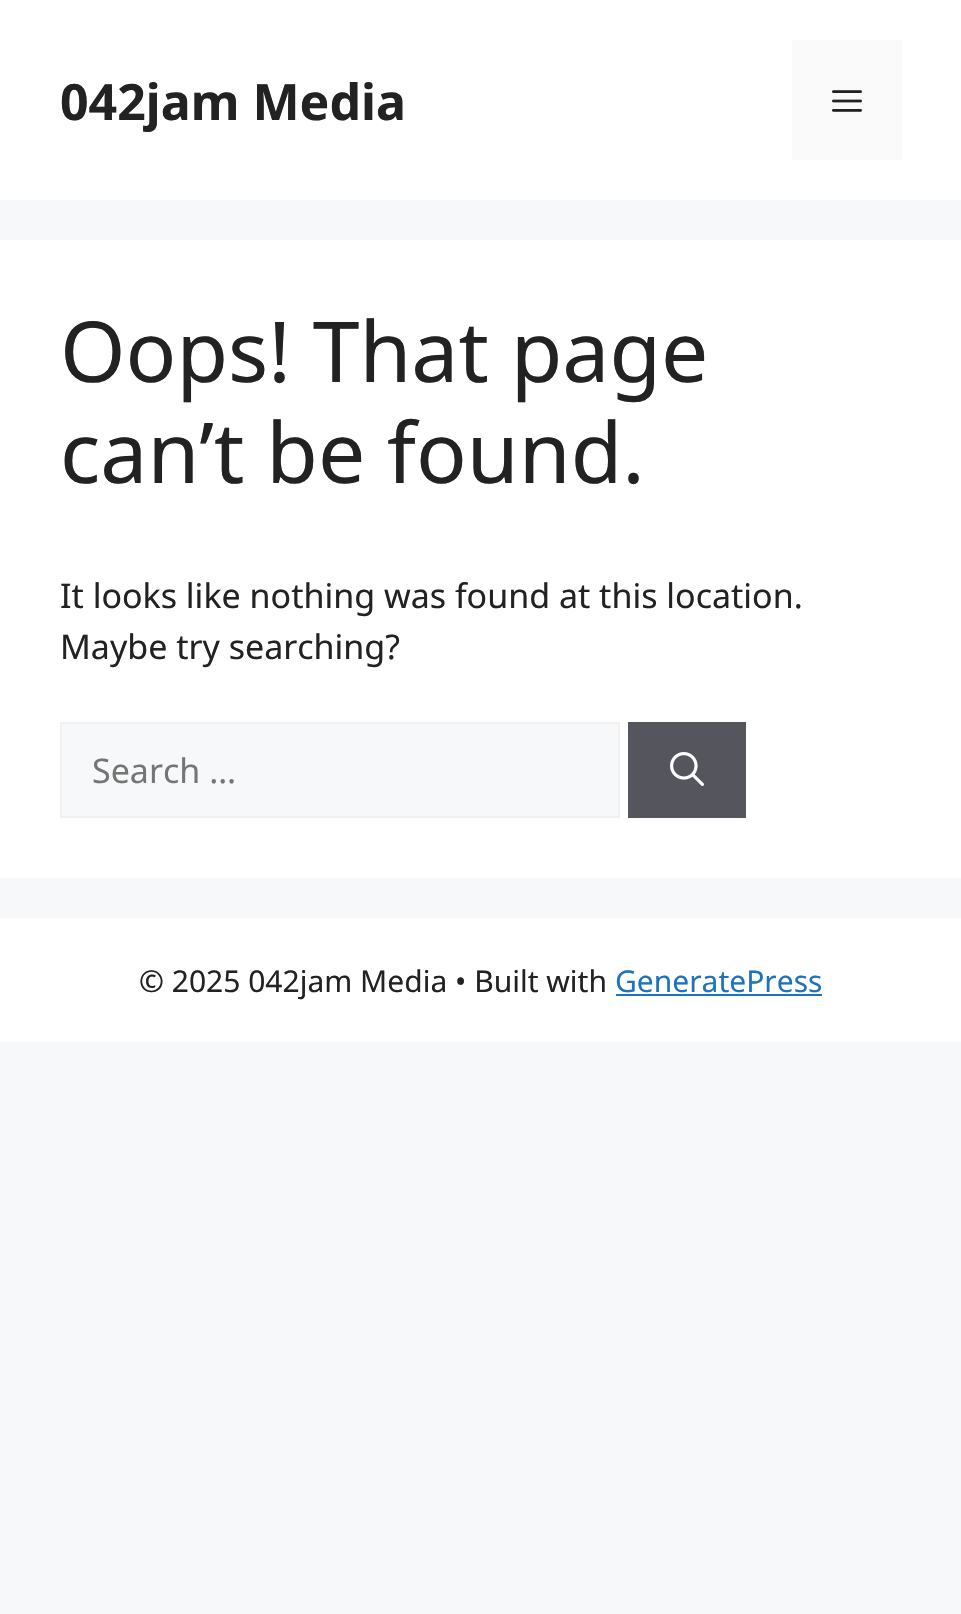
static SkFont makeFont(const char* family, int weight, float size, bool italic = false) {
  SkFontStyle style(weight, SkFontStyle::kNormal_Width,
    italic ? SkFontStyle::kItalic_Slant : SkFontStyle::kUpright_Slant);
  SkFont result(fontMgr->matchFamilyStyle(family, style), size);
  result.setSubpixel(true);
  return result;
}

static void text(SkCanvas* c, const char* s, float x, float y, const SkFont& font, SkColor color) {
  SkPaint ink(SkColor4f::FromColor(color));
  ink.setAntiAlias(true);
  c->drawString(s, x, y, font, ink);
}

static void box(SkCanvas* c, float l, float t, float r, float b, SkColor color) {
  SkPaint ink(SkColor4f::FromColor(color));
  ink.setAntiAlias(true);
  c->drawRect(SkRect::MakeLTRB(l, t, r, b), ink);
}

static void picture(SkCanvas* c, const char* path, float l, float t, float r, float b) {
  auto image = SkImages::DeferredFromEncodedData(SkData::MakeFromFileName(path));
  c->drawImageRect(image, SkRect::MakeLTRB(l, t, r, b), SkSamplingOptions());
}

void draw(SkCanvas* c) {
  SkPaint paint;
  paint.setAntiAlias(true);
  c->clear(0xfff7f8f9);
  box(c, 0, 0, 961, 200, 0xffffffff);
  SkFont face1 = makeFont("Noto Sans", 700, 50);
  text(c, "042jam Media", 60, 120, face1, 0xff222222);
  box(c, 792, 40, 902, 160, 0xfffafafa);
  picture(c, "img_01.png", 832, 90, 862, 112);
  box(c, 0, 240, 961, 878, 0xffffffff);
  SkFont face2 = makeFont("Noto Sans", 400, 84);
  text(c, "Oops! That page", 60, 382, face2, 0xff222222);
  text(c, "can’t be found.", 60, 483, face2, 0xff222222);
  SkFont face3 = makeFont("Noto Sans", 400, 34);
  text(c, "It looks like nothing was found at this location.", 60, 608, face3, 0xff222222);
  text(c, "Maybe try searching?", 60, 659, face3, 0xff222222);
  paint.setColor(0xfff7f8f9);
  c->drawRect(SkRect::MakeLTRB(61, 723, 619, 817), paint);
  paint.setStyle(SkPaint::kStroke_Style);
  paint.setStrokeWidth(2);
  paint.setColor(0xfff0f0f0);
  c->drawRect(SkRect::MakeLTRB(61, 723, 619, 817), paint);
  text(c, "Search …", 92, 783, face3, 0xff757575);
  box(c, 628, 722, 746, 818, 0xff55555e);
  picture(c, "img_02.png", 670, 752, 704, 786);
  box(c, 0, 918, 961, 1042, 0xffffffff);
  SkFont face4 = makeFont("Noto Sans", 400, 30);
  text(c, "© 2025 042jam Media • Built with", 139, 992, face4, 0xff222222);
  text(c, "GeneratePress", 615, 992, face4, 0xff1e73be);
  box(c, 616, 994, 822, 996, 0xff1e73be);
}
